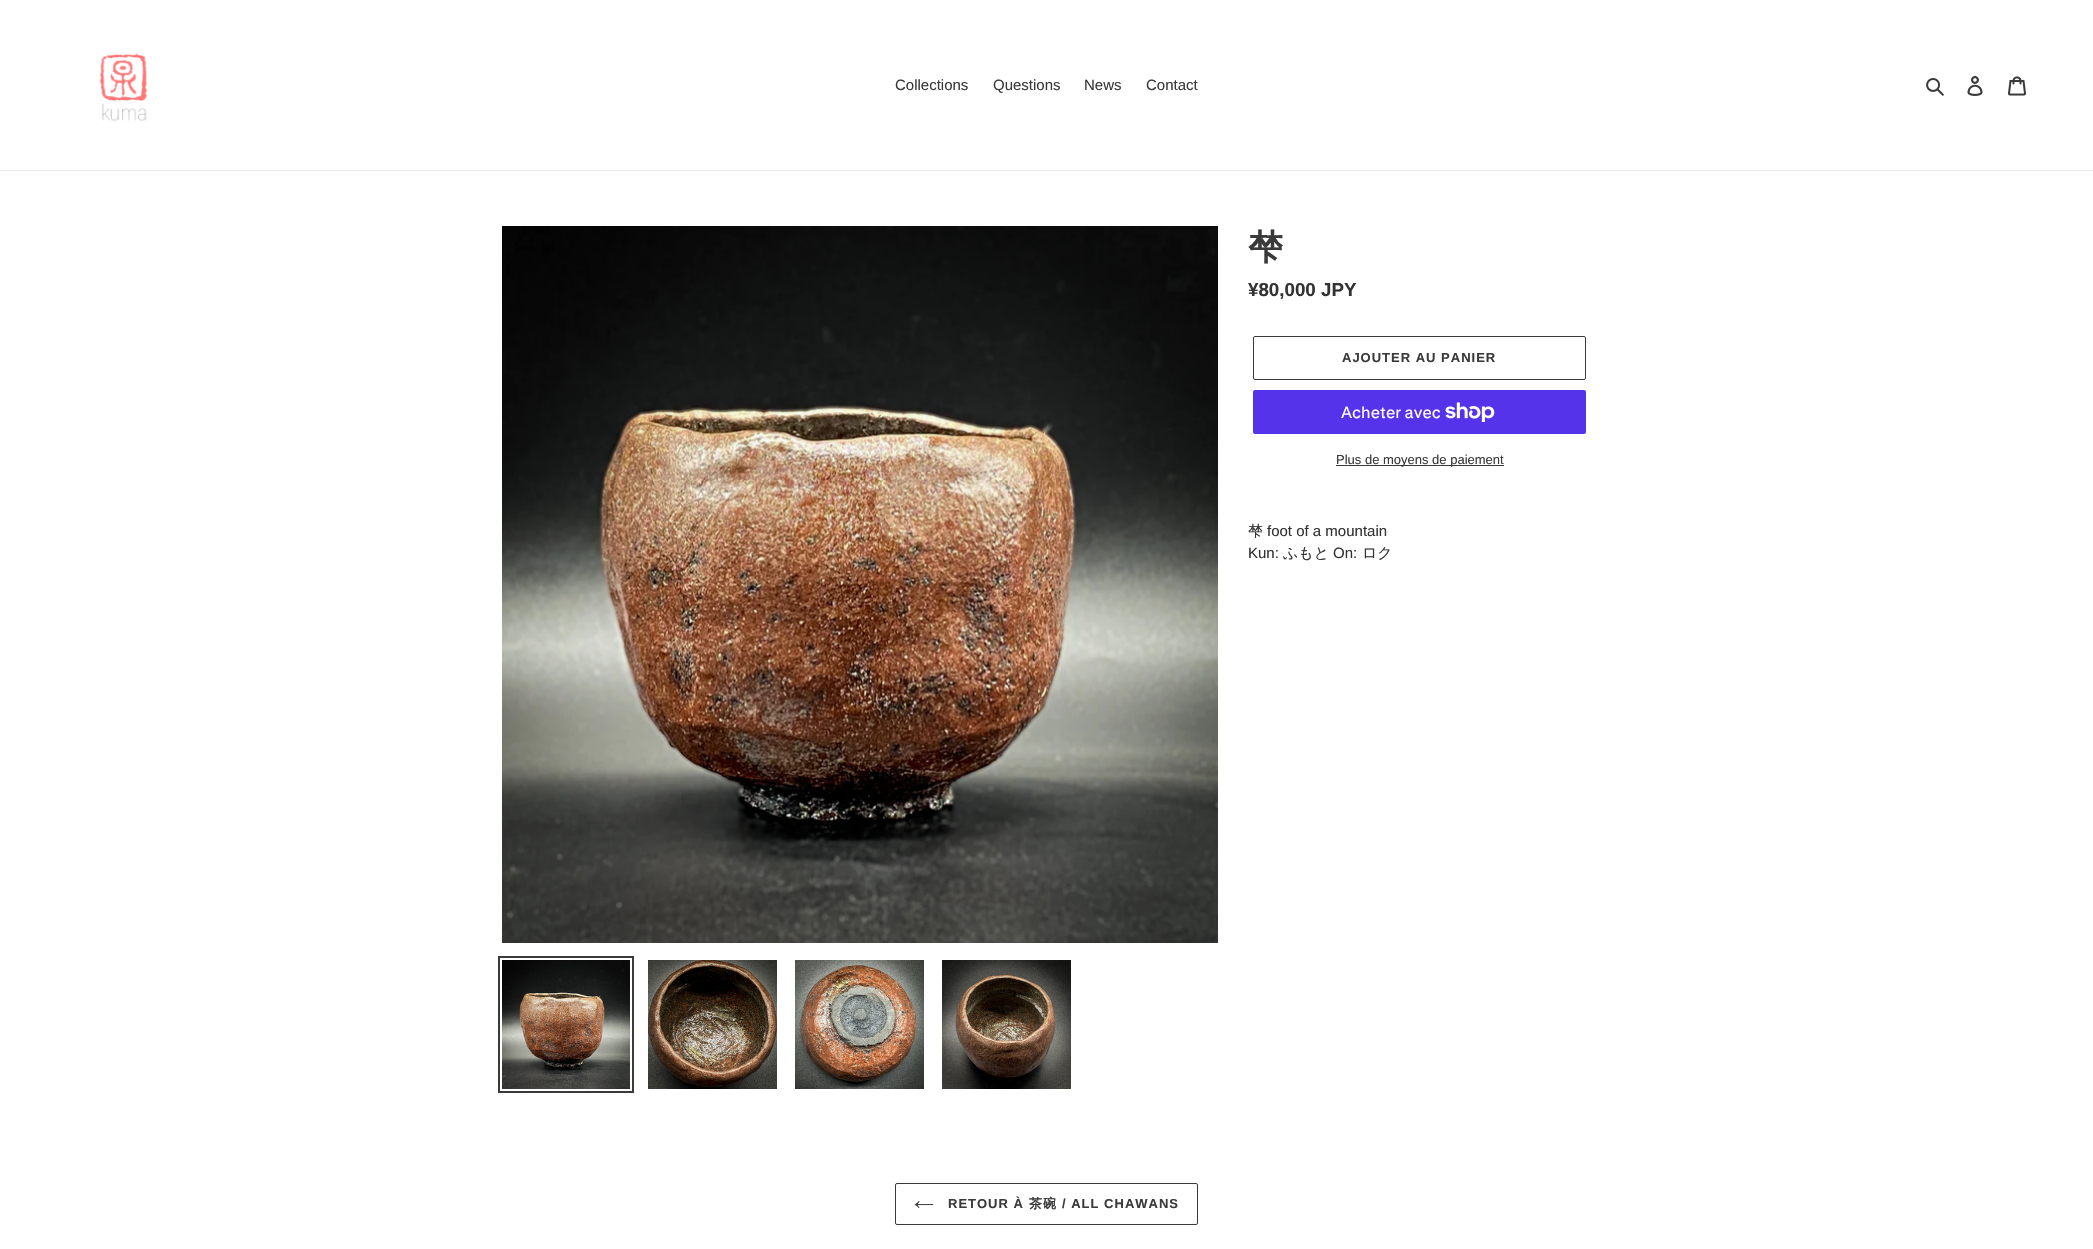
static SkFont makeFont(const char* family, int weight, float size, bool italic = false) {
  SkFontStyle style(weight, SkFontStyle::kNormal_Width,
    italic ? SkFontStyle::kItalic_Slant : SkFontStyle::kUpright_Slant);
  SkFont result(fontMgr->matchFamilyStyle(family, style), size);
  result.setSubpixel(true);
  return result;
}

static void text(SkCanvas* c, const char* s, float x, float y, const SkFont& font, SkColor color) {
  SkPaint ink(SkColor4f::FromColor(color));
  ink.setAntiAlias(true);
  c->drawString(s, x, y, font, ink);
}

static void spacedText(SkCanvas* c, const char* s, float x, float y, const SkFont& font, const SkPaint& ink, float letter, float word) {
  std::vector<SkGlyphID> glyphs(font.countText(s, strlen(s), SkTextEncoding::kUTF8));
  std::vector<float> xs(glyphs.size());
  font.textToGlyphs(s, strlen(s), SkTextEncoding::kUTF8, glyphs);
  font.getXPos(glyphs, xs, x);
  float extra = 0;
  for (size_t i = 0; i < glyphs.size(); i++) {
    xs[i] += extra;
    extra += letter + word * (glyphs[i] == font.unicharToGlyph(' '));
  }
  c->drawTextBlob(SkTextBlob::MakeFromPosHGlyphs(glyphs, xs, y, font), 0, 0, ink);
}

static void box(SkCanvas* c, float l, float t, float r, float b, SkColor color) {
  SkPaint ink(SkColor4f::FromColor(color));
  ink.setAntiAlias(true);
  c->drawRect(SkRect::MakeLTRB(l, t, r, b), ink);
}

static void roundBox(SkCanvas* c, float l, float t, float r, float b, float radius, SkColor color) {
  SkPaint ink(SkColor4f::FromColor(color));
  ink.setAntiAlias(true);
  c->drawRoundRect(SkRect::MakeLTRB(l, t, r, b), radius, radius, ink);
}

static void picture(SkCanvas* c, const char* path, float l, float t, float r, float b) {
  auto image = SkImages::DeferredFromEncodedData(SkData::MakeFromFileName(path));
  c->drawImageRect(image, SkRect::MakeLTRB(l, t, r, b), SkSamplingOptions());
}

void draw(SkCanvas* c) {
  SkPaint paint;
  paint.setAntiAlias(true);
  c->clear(0xffffffff);
  box(c, 0, 170, 2093, 171, 0xffebebeb);
  picture(c, "img_01.png", 99, 53, 148, 121);
  SkFont face1 = makeFont("Liberation Sans", 400, 15);
  text(c, "Collections", 895, 90, face1, 0xff3a3a3a);
  text(c, "Questions", 993, 90, face1, 0xff3a3a3a);
  text(c, "News", 1084, 90, face1, 0xff3a3a3a);
  text(c, "Contact", 1146, 90, face1, 0xff3a3a3a);
  picture(c, "img_02.png", 1926, 78, 1944, 96);
  picture(c, "img_03.png", 1967, 76, 1983, 96);
  picture(c, "img_04.png", 2008, 76, 2026, 96);
  picture(c, "img_05.png", 502, 226, 1218, 943);
  paint.setStyle(SkPaint::kStroke_Style);
  paint.setStrokeWidth(2);
  paint.setColor(0xff3a3a3a);
  c->drawRect(SkRect::MakeLTRB(499, 957, 633, 1092), paint);
  picture(c, "img_06.png", 502, 960, 630, 1089);
  picture(c, "img_07.png", 648, 960, 777, 1089);
  picture(c, "img_08.png", 795, 960, 924, 1089);
  picture(c, "img_09.png", 942, 960, 1071, 1089);
  SkFont face2 = makeFont("WenQuanYi Zen Hei", 700, 35);
  text(c, "梺", 1248, 259, face2, 0xff3a3a3a);
  SkFont face3 = makeFont("Liberation Sans", 700, 18.75f);
  text(c, "¥80,000 JPY", 1248, 296, face3, 0xff333232);
  paint.setStrokeWidth(1);
  c->drawRoundRect(SkRect::MakeLTRB(1253.5f, 336.5f, 1585.5f, 379.5f), 1.5f, 1.5f, paint);
  SkFont face4 = makeFont("Liberation Sans", 700, 13);
  paint.setStyle(SkPaint::kFill_Style);
  spacedText(c, "AJOUTER AU PANIER", 1342, 362, face4, paint, 1, 0);
  roundBox(c, 1253, 390, 1586, 434, 2, 0xff5433eb);
  SkFont face5 = makeFont("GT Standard", 400, 16);
  text(c, "Acheter avec", 1341, 418, face5, 0xffffffff);
  picture(c, "img_10.png", 1445, 402, 1495, 422);
  box(c, 1336, 465, 1504, 466, 0xff3a3a3a);
  SkFont face6 = makeFont("Liberation Sans", 400, 13);
  text(c, "Plus de moyens de paiement", 1336, 464, face6, 0xff3a3a3a);
  SkFont face7 = makeFont("WenQuanYi Zen Hei", 500, 15);
  text(c, "梺", 1248, 536, face7, 0xff333232);
  text(c, "foot of a mountain", 1267, 536, face1, 0xff333232);
  text(c, "Kun:", 1248, 558, face1, 0xff333232);
  text(c, "ふもと", 1283, 558, face7, 0xff333232);
  text(c, "On:", 1333, 558, face1, 0xff333232);
  text(c, "ロク", 1362, 558, face7, 0xff333232);
  paint.setStyle(SkPaint::kStroke_Style);
  c->drawRoundRect(SkRect::MakeLTRB(895.5f, 1183.5f, 1197.5f, 1224.5f), 1.5f, 1.5f, paint);
  picture(c, "img_11.png", 914, 1201, 934, 1209);
  paint.setStyle(SkPaint::kFill_Style);
  spacedText(c, "RETOUR À", 948, 1208, face4, paint, 1, 0);
  SkFont face8 = makeFont("WenQuanYi Zen Hei", 700, 13);
  spacedText(c, "茶碗", 1029, 1208, face8, paint, 1, 0);
  spacedText(c, "/ ALL CHAWANS", 1062, 1208, face4, paint, 1, 0);
}
